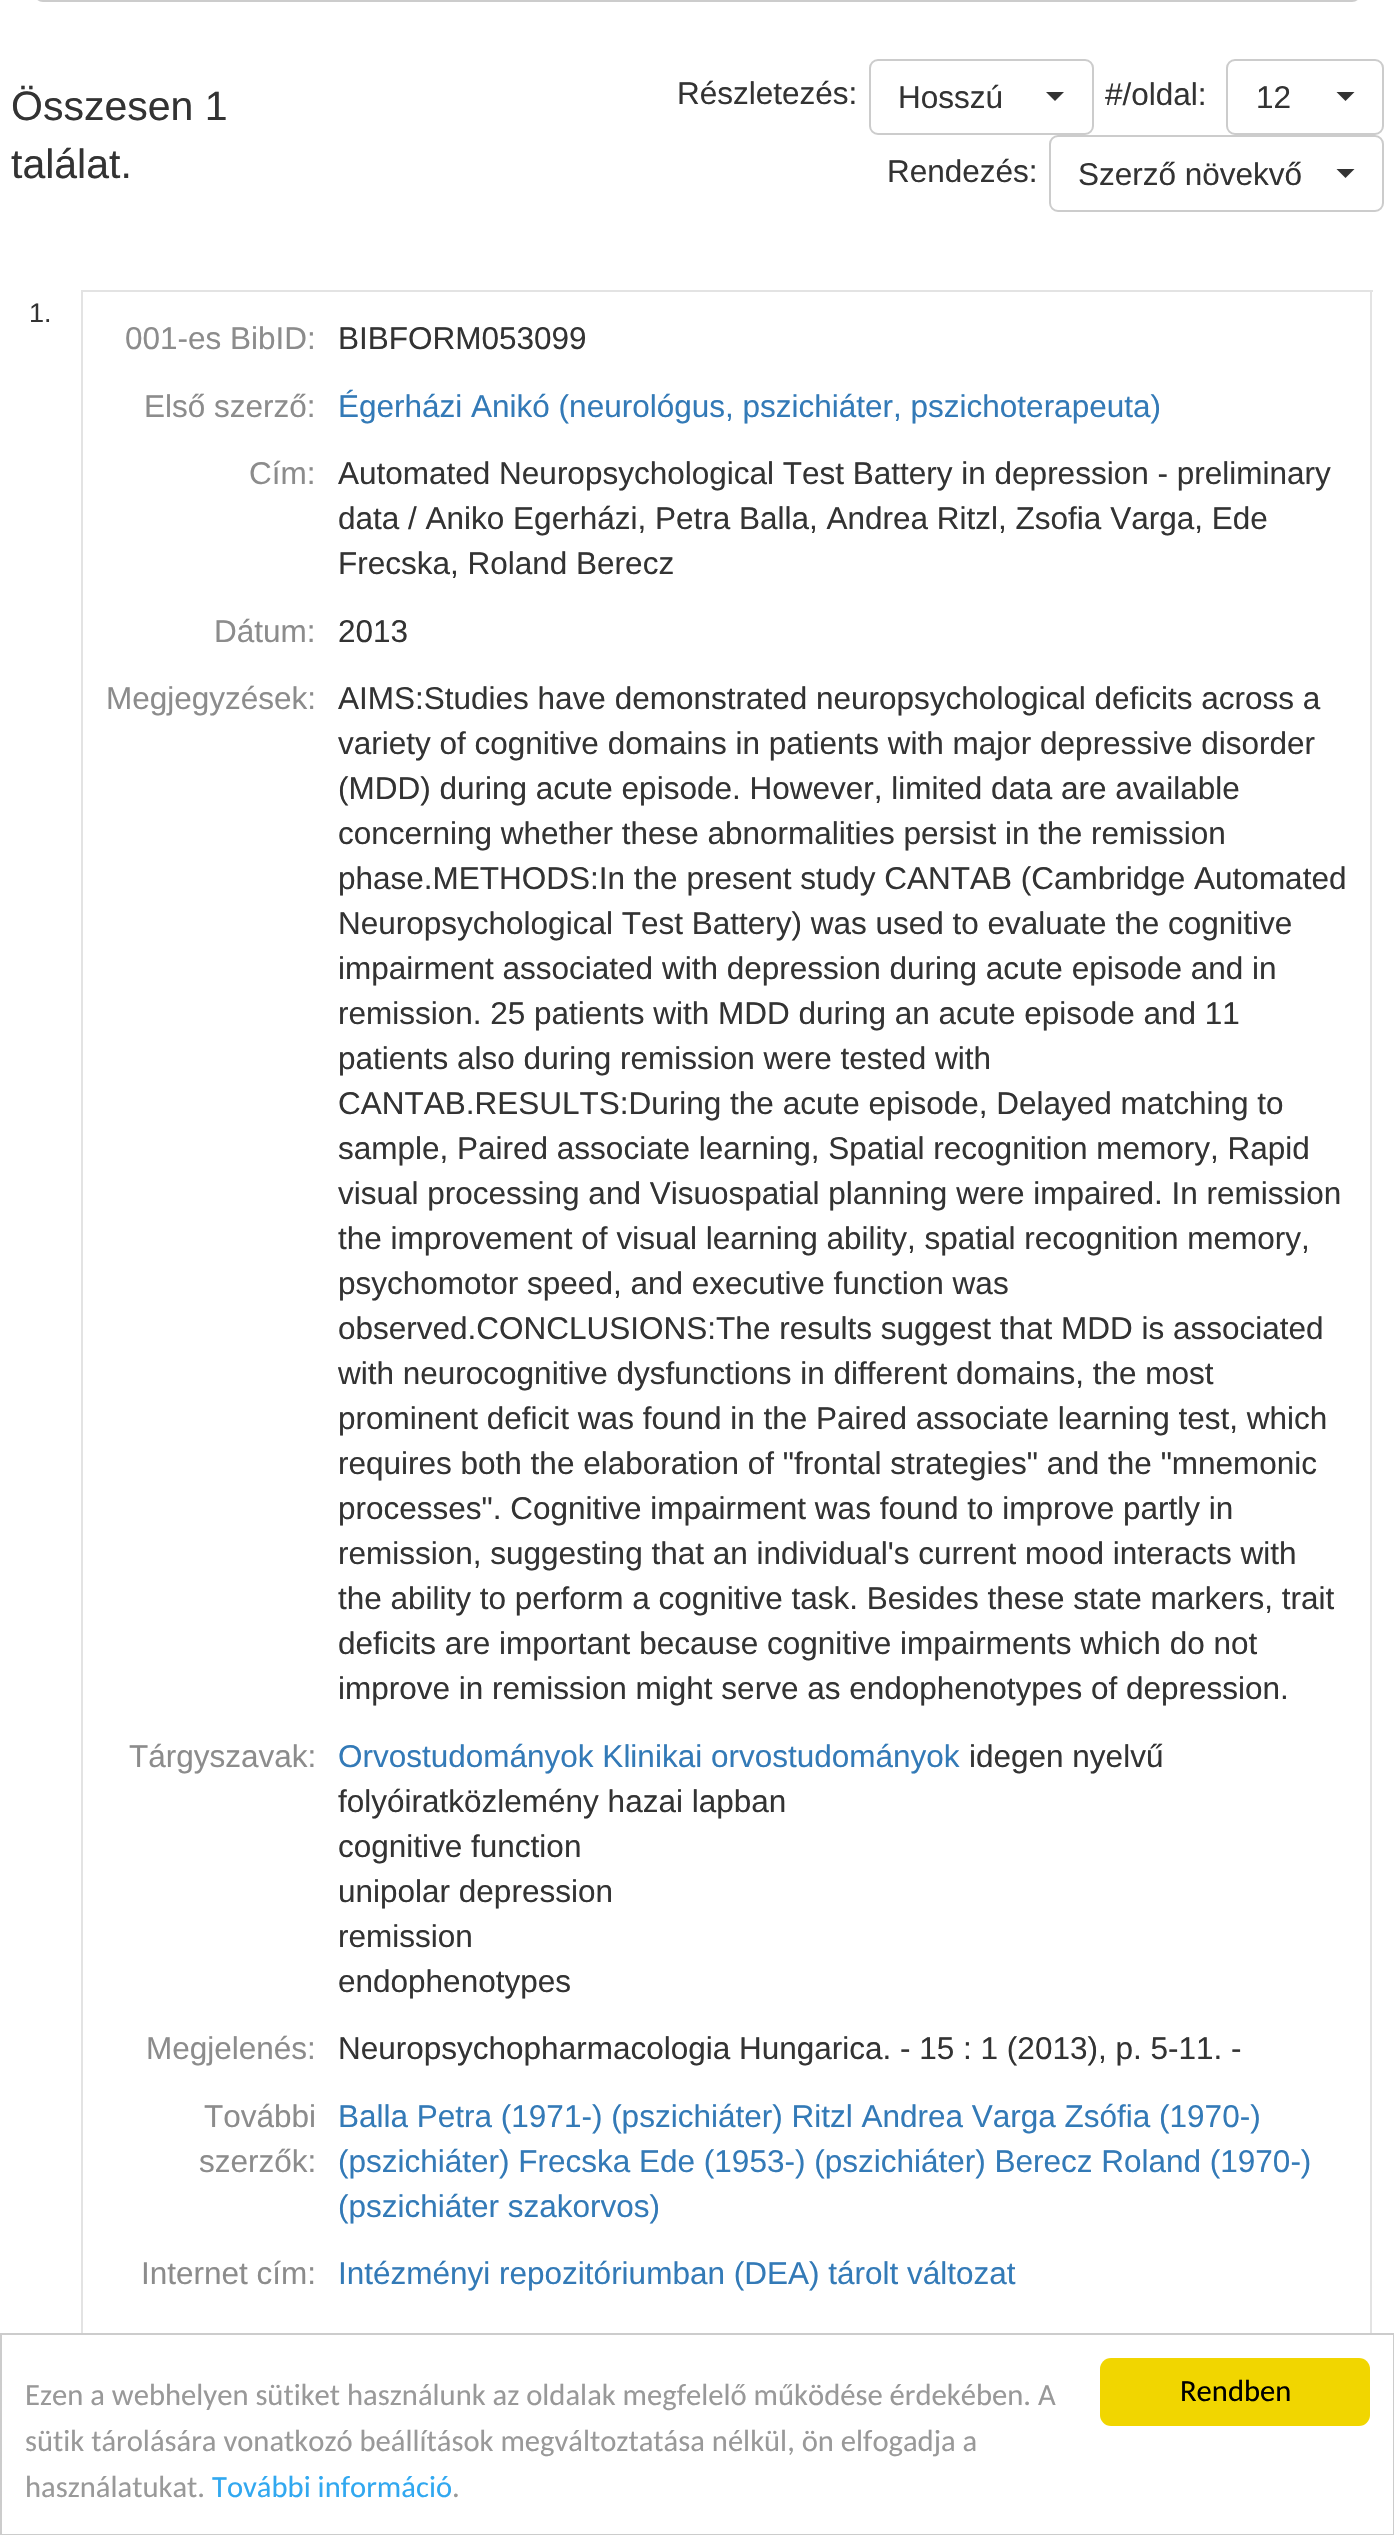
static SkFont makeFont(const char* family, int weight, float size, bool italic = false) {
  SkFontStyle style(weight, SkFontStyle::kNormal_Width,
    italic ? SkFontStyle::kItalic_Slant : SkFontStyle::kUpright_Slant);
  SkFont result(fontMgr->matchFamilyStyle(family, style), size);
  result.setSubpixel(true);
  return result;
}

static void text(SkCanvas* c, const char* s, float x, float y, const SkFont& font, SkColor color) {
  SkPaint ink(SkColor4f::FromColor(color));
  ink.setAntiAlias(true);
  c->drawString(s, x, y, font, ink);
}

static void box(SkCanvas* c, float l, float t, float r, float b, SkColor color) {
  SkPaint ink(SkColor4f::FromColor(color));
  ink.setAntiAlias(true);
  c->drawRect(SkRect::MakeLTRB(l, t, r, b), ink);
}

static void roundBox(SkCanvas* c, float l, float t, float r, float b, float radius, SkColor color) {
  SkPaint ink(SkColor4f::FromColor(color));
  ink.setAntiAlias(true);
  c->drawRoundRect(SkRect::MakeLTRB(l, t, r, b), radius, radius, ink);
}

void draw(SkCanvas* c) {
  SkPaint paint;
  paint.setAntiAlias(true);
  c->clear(0xffffffff);
  paint.setColor(0xffcccccc);
  c->drawPath(SkPathBuilder(SkPathFillType::kEvenOdd).moveTo(43, -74).lineTo(153, -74).lineTo(153, 2).lineTo(43, 2).cubicTo(38, 2, 34, -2, 34, -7).lineTo(34, -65).cubicTo(34, -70, 38, -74, 43, -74).close().moveTo(43, -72).lineTo(153, -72).lineTo(153, 0).lineTo(43, 0).cubicTo(39, 0, 36, -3, 36, -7).lineTo(36, -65).cubicTo(36, -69, 39, -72, 43, -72).close().detach(), paint);
  paint.setStyle(SkPaint::kStroke_Style);
  paint.setStrokeWidth(2);
  c->drawRect(SkRect::MakeLTRB(154, -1, 1259, 1), paint);
  c->drawPath(SkPathBuilder().moveTo(1259, -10).lineTo(1352, -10).cubicTo(1356.5f, -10, 1360, -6.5f, 1360, -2).lineTo(1360, -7).cubicTo(1360, -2.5f, 1356.5f, 1, 1352, 1).lineTo(1259, 1).close().detach(), paint);
  SkFont face1 = makeFont("Liberation Sans", 400, 41);
  text(c, "Összesen 1", 11, 120, face1, 0xff333333);
  text(c, "találat.", 11, 178, face1, 0xff333333);
  SkFont face2 = makeFont("Liberation Sans", 400, 31.5f);
  text(c, "Részletezés:", 677, 104, face2, 0xff333333);
  c->drawRoundRect(SkRect::MakeLTRB(870, 60, 1093, 134), 8, 8, paint);
  text(c, "Hosszú", 898, 108, face2, 0xff333333);
  paint.setStyle(SkPaint::kFill_Style);
  paint.setColor(0xff333333);
  c->drawPath(SkPathBuilder().moveTo(1046, 92).lineTo(1064, 92).lineTo(1055, 101).close().detach(), paint);
  text(c, "#/oldal:", 1105, 105, face2, 0xff333333);
  paint.setStyle(SkPaint::kStroke_Style);
  paint.setColor(0xffcccccc);
  c->drawRoundRect(SkRect::MakeLTRB(1227, 60, 1383, 134), 8, 8, paint);
  text(c, "12", 1256, 108, face2, 0xff333333);
  paint.setStyle(SkPaint::kFill_Style);
  paint.setColor(0xff333333);
  c->drawPath(SkPathBuilder().moveTo(1336.5f, 92).lineTo(1354.5f, 92).lineTo(1345.5f, 101).close().detach(), paint);
  text(c, "Rendezés:", 887, 182, face2, 0xff333333);
  paint.setStyle(SkPaint::kStroke_Style);
  paint.setColor(0xffcccccc);
  c->drawRoundRect(SkRect::MakeLTRB(1050, 136, 1383, 211), 8, 8, paint);
  text(c, "Szerző növekvő", 1078, 185, face2, 0xff333333);
  paint.setStyle(SkPaint::kFill_Style);
  paint.setColor(0xff333333);
  c->drawPath(SkPathBuilder().moveTo(1336.5f, 169).lineTo(1354.5f, 169).lineTo(1345.5f, 178).close().detach(), paint);
  SkFont face3 = makeFont("Liberation Sans", 400, 27);
  text(c, "1.", 29, 322, face3, 0xff333333);
  box(c, 81, 290, 1373, 292, 0xffe3e3e3);
  box(c, 1370, 290, 1372, 2333, 0xffe3e3e3);
  box(c, 81, 290, 83, 2333, 0xffe3e3e3);
  text(c, "001-es BibID:", 125, 349, face2, 0xff8c8c8c);
  text(c, "BIBFORM053099", 338, 349, face2, 0xff333333);
  text(c, "Első szerző:", 144, 417, face2, 0xff8c8c8c);
  text(c, "Égerházi Anikó (neurológus, pszichiáter, pszichoterapeuta)", 338, 417, face2, 0xff337ab7);
  text(c, "Cím:", 249, 484, face2, 0xff8c8c8c);
  text(c, "Automated Neuropsychological Test Battery in depression - preliminary", 338, 484, face2, 0xff333333);
  text(c, "data / Aniko Egerházi, Petra Balla, Andrea Ritzl, Zsofia Varga, Ede", 338, 529, face2, 0xff333333);
  text(c, "Frecska, Roland Berecz", 338, 574, face2, 0xff333333);
  text(c, "Dátum:", 214, 642, face2, 0xff8c8c8c);
  text(c, "2013", 338, 642, face2, 0xff333333);
  text(c, "Megjegyzések:", 106, 709, face2, 0xff8c8c8c);
  text(c, "AIMS:Studies have demonstrated neuropsychological deficits across a", 338, 709, face2, 0xff333333);
  text(c, "variety of cognitive domains in patients with major depressive disorder", 338, 754, face2, 0xff333333);
  text(c, "(MDD) during acute episode. However, limited data are available", 338, 799, face2, 0xff333333);
  text(c, "concerning whether these abnormalities persist in the remission", 338, 844, face2, 0xff333333);
  text(c, "phase.METHODS:In the present study CANTAB (Cambridge Automated", 338, 889, face2, 0xff333333);
  text(c, "Neuropsychological Test Battery) was used to evaluate the cognitive", 338, 934, face2, 0xff333333);
  text(c, "impairment associated with depression during acute episode and in", 338, 979, face2, 0xff333333);
  text(c, "remission. 25 patients with MDD during an acute episode and 11", 338, 1024, face2, 0xff333333);
  text(c, "patients also during remission were tested with", 338, 1069, face2, 0xff333333);
  text(c, "CANTAB.RESULTS:During the acute episode, Delayed matching to", 338, 1114, face2, 0xff333333);
  text(c, "sample, Paired associate learning, Spatial recognition memory, Rapid", 338, 1159, face2, 0xff333333);
  text(c, "visual processing and Visuospatial planning were impaired. In remission", 338, 1204, face2, 0xff333333);
  text(c, "the improvement of visual learning ability, spatial recognition memory,", 338, 1249, face2, 0xff333333);
  text(c, "psychomotor speed, and executive function was", 338, 1294, face2, 0xff333333);
  text(c, "observed.CONCLUSIONS:The results suggest that MDD is associated", 338, 1339, face2, 0xff333333);
  text(c, "with neurocognitive dysfunctions in different domains, the most", 338, 1384, face2, 0xff333333);
  text(c, "prominent deficit was found in the Paired associate learning test, which", 338, 1429, face2, 0xff333333);
  text(c, "requires both the elaboration of \"frontal strategies\" and the \"mnemonic", 338, 1474, face2, 0xff333333);
  text(c, "processes\". Cognitive impairment was found to improve partly in", 338, 1519, face2, 0xff333333);
  text(c, "remission, suggesting that an individual's current mood interacts with", 338, 1564, face2, 0xff333333);
  text(c, "the ability to perform a cognitive task. Besides these state markers, trait", 338, 1609, face2, 0xff333333);
  text(c, "deficits are important because cognitive impairments which do not", 338, 1654, face2, 0xff333333);
  text(c, "improve in remission might serve as endophenotypes of depression.", 338, 1699, face2, 0xff333333);
  text(c, "Tárgyszavak:", 129, 1767, face2, 0xff8c8c8c);
  text(c, "Orvostudományok Klinikai orvostudományok", 338, 1767, face2, 0xff337ab7);
  text(c, "idegen nyelvű", 969, 1767, face2, 0xff333333);
  text(c, "folyóiratközlemény hazai lapban", 338, 1812, face2, 0xff333333);
  text(c, "cognitive function", 338, 1857, face2, 0xff333333);
  text(c, "unipolar depression", 338, 1902, face2, 0xff333333);
  text(c, "remission", 338, 1947, face2, 0xff333333);
  text(c, "endophenotypes", 338, 1992, face2, 0xff333333);
  text(c, "Megjelenés:", 146, 2059, face2, 0xff8c8c8c);
  text(c, "Neuropsychopharmacologia Hungarica. - 15 : 1 (2013), p. 5-11. -", 338, 2059, face2, 0xff333333);
  text(c, "További", 204, 2127, face2, 0xff8c8c8c);
  text(c, "szerzők:", 199, 2172, face2, 0xff8c8c8c);
  text(c, "Balla Petra (1971-) (pszichiáter) Ritzl Andrea Varga Zsófia (1970-)", 338, 2127, face2, 0xff337ab7);
  text(c, "(pszichiáter) Frecska Ede (1953-) (pszichiáter) Berecz Roland (1970-)", 338, 2172, face2, 0xff337ab7);
  text(c, "(pszichiáter szakorvos)", 338, 2217, face2, 0xff337ab7);
  text(c, "Internet cím:", 141, 2284, face2, 0xff8c8c8c);
  text(c, "Intézményi repozitóriumban (DEA) tárolt változat", 338, 2284, face2, 0xff337ab7);
  paint.setStyle(SkPaint::kStroke_Style);
  paint.setColor(0xffcccccc);
  c->drawRect(SkRect::MakeLTRB(1, 2334, 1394, 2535), paint);
  SkFont face4 = makeFont("Carlito", 400, 30.6f);
  text(c, "Ezen a webhelyen sütiket használunk az oldalak megfelelő működése érdekében. A", 25, 2405, face4, 0xff999999);
  text(c, "sütik tárolására vonatkozó beállítások megváltoztatása nélkül, ön elfogadja a", 25, 2451, face4, 0xff999999);
  text(c, "használatukat.", 25, 2497, face4, 0xff999999);
  text(c, "További információ", 212, 2497, face4, 0xff31a8f0);
  text(c, ".", 452, 2497, face4, 0xff999999);
  roundBox(c, 1100, 2358, 1370, 2426, 11, 0xfff1d600);
  text(c, "Rendben", 1180, 2401, face4, 0xff000000);
}
